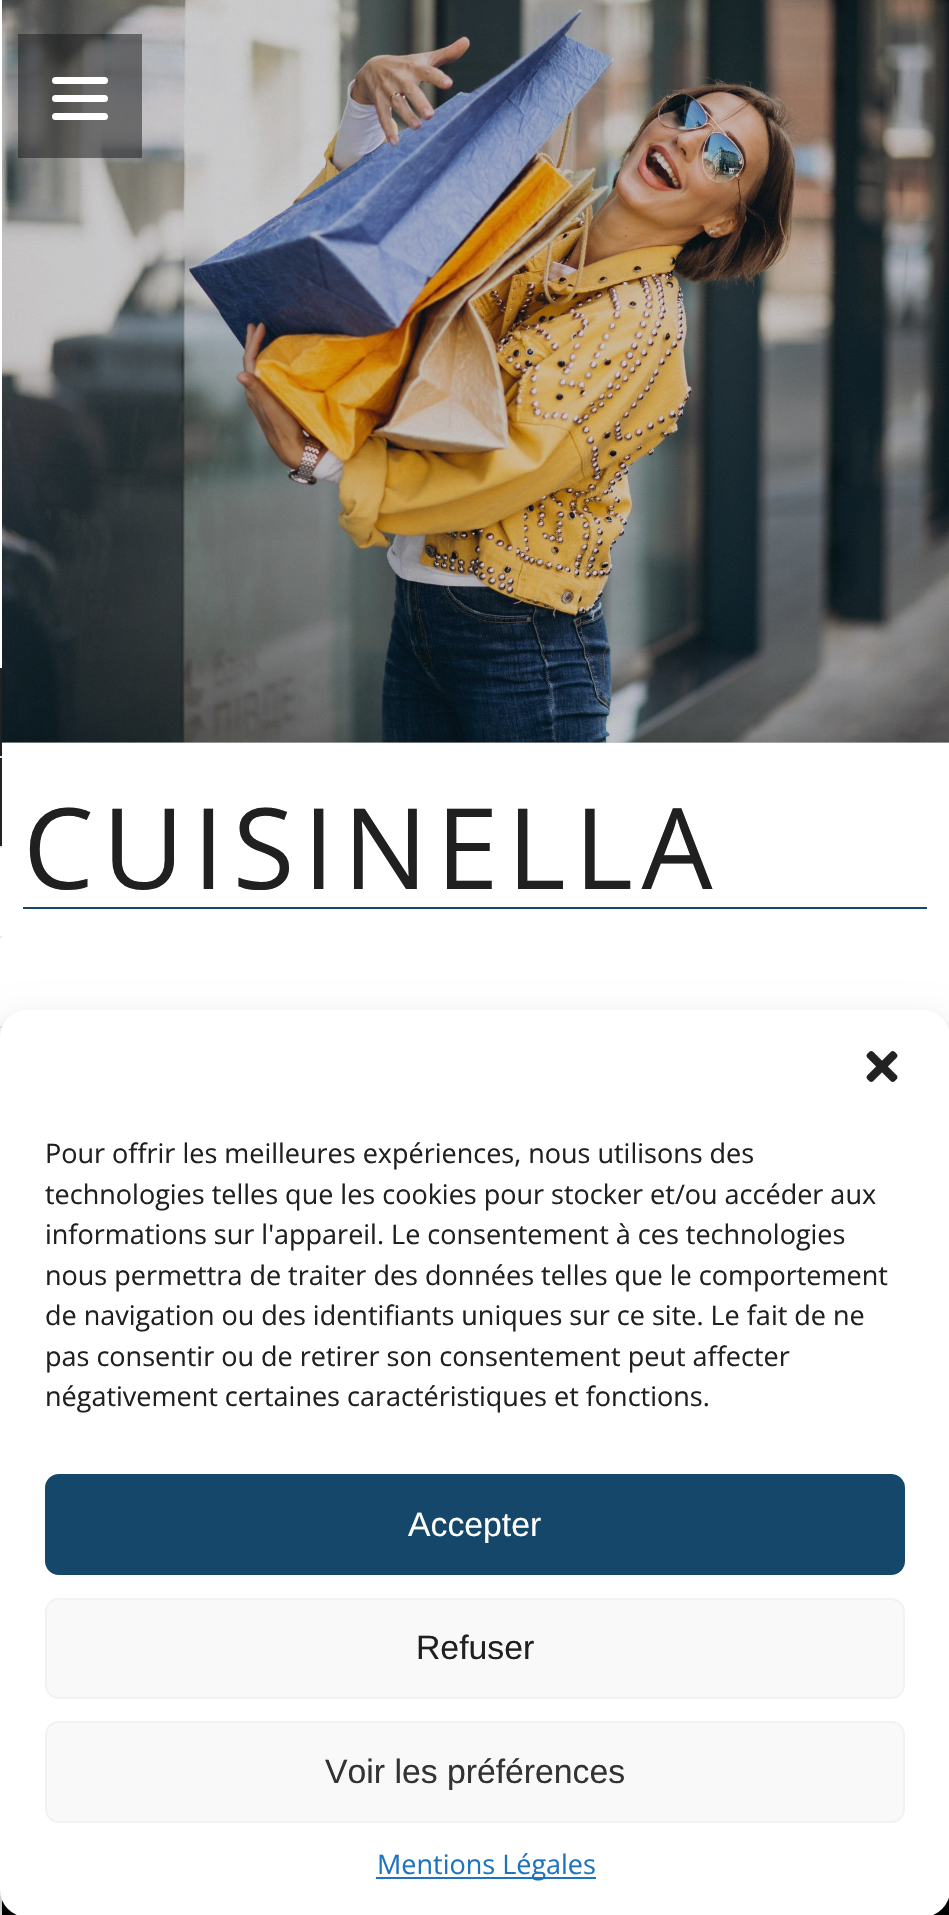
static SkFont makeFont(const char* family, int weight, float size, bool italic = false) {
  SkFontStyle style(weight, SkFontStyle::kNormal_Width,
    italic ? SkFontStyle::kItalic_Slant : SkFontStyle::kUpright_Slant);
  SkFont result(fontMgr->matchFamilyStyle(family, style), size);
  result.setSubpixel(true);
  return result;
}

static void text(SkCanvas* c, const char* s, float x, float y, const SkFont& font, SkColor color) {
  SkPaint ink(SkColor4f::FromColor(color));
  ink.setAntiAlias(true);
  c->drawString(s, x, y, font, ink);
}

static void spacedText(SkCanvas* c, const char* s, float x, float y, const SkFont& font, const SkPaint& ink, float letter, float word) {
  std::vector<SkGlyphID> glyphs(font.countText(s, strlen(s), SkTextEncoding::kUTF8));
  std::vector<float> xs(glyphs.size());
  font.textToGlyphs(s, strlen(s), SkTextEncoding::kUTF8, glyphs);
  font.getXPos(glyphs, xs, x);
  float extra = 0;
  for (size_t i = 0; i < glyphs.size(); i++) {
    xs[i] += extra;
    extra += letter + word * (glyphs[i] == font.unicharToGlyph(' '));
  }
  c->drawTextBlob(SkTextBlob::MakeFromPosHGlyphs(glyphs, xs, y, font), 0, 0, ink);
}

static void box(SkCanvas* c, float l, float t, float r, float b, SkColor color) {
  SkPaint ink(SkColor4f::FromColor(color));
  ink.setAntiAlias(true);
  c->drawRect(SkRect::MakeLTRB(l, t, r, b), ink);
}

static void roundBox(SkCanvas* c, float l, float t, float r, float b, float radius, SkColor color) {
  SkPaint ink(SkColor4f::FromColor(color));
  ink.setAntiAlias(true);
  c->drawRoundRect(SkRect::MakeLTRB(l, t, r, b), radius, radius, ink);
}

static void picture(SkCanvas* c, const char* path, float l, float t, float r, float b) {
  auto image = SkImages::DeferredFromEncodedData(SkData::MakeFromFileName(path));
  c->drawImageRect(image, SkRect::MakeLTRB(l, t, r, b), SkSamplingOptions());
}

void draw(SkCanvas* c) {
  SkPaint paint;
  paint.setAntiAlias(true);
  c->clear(0xffffffff);
  box(c, 2, 742, 949, 743, 0xffd0d0d0);
  picture(c, "img_01.png", 2, 0, 949, 743);
  box(c, 18, 34, 142, 158, 0x80151515);
  roundBox(c, 52, 95, 108, 102, 3.5f, 0xffffffff);
  roundBox(c, 52, 77, 108, 84, 3.5f, 0xffffffff);
  roundBox(c, 52, 113, 108, 120, 3.5f, 0xffffffff);
  box(c, 0, 756, 2, 758, 0xffe8e8e8);
  box(c, 0, 668, 2, 756, 0xff212121);
  box(c, 0, 846, 2, 848, 0xffe8e8e8);
  box(c, 0, 758, 2, 846, 0xff212121);
  box(c, 0, 936, 2, 938, 0xffe8e8e8);
  box(c, 0, 1026, 2, 1028, 0xffe8e8e8);
  box(c, 23, 907, 927, 909, 0xff144769);
  SkFont face1 = makeFont("Open Sans", 400, 112.5f);
  paint.setColor(0xff202020);
  spacedText(c, "CUISINELLA", 23, 889, face1, paint, 8.5f, 0);
  box(c, 2, 1897, 949, 1915, 0xff000000);
  paint.setColor(0x3b000000);
  paint.setMaskFilter(SkMaskFilter::MakeBlur(kNormal_SkBlurStyle, 7));
  c->drawRoundRect(SkRect::MakeLTRB(0, 1024, 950, 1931), 27, 27, paint);
  paint.setMaskFilter(nullptr);
  paint.setColor(0x30000000);
  paint.setMaskFilter(SkMaskFilter::MakeBlur(kNormal_SkBlurStyle, 22.5f));
  c->drawRoundRect(SkRect::MakeLTRB(0, 1033, 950, 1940), 27, 27, paint);
  paint.setMaskFilter(nullptr);
  roundBox(c, 0, 1010, 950, 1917, 27, 0xffffffff);
  picture(c, "img_02.png", 866, 1051, 898, 1082);
  SkFont face2 = makeFont("Open Sans", 400, 27);
  text(c, "Pour offrir les meilleures expériences, nous utilisons des", 45, 1163, face2, 0xff202020);
  text(c, "technologies telles que les cookies pour stocker et/ou accéder aux", 45, 1204, face2, 0xff202020);
  text(c, "informations sur l'appareil. Le consentement à ces technologies", 45, 1244, face2, 0xff202020);
  text(c, "nous permettra de traiter des données telles que le comportement", 45, 1285, face2, 0xff202020);
  text(c, "de navigation ou des identifiants uniques sur ce site. Le fait de ne", 45, 1325, face2, 0xff202020);
  text(c, "pas consentir ou de retirer son consentement peut affecter", 45, 1366, face2, 0xff202020);
  text(c, "négativement certaines caractéristiques et fonctions.", 45, 1406, face2, 0xff202020);
  paint.setColor(0xff144769);
  c->drawRoundRect(SkRect::MakeLTRB(46, 1475, 904, 1574), 13, 13, paint);
  paint.setStyle(SkPaint::kStroke_Style);
  paint.setStrokeWidth(2);
  c->drawRoundRect(SkRect::MakeLTRB(46, 1475, 904, 1574), 13, 13, paint);
  SkFont face3 = makeFont("Liberation Sans", 400, 33.75f);
  text(c, "Accepter", 408, 1536, face3, 0xffffffff);
  paint.setStyle(SkPaint::kFill_Style);
  paint.setColor(0xfff9f9f9);
  c->drawRoundRect(SkRect::MakeLTRB(46, 1599, 904, 1698), 13, 13, paint);
  paint.setStyle(SkPaint::kStroke_Style);
  paint.setColor(0xfff2f2f2);
  c->drawRoundRect(SkRect::MakeLTRB(46, 1599, 904, 1698), 13, 13, paint);
  text(c, "Refuser", 416, 1659, face3, 0xff202020);
  paint.setStyle(SkPaint::kFill_Style);
  paint.setColor(0xfff9f9f9);
  c->drawRoundRect(SkRect::MakeLTRB(46, 1722, 904, 1822), 13, 13, paint);
  paint.setStyle(SkPaint::kStroke_Style);
  paint.setColor(0xfff2f2f2);
  c->drawRoundRect(SkRect::MakeLTRB(46, 1722, 904, 1822), 13, 13, paint);
  text(c, "Voir les préférences", 325, 1783, face3, 0xff333333);
  box(c, 376, 1877, 596, 1879, 0xff1e73be);
  text(c, "Mentions Légales", 377, 1874, face2, 0xff1e73be);
}
